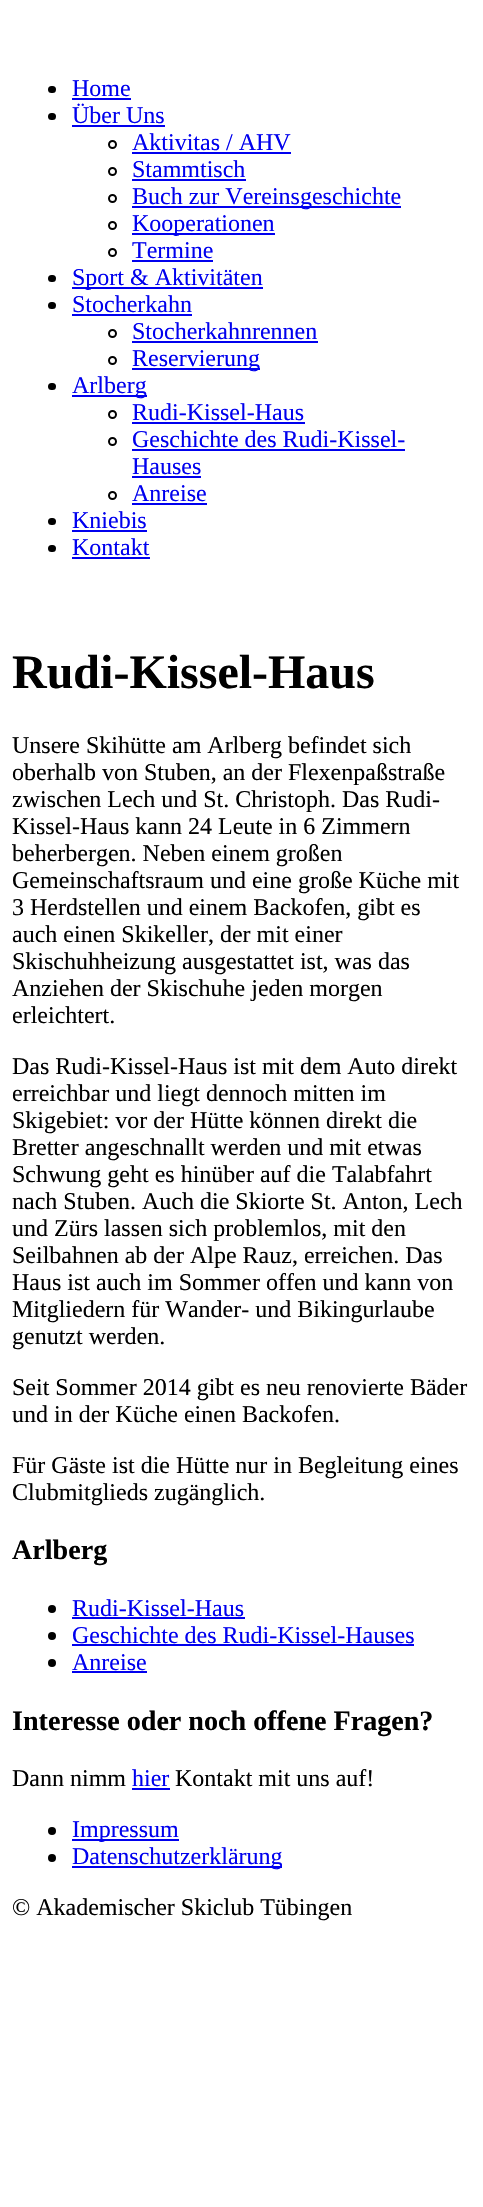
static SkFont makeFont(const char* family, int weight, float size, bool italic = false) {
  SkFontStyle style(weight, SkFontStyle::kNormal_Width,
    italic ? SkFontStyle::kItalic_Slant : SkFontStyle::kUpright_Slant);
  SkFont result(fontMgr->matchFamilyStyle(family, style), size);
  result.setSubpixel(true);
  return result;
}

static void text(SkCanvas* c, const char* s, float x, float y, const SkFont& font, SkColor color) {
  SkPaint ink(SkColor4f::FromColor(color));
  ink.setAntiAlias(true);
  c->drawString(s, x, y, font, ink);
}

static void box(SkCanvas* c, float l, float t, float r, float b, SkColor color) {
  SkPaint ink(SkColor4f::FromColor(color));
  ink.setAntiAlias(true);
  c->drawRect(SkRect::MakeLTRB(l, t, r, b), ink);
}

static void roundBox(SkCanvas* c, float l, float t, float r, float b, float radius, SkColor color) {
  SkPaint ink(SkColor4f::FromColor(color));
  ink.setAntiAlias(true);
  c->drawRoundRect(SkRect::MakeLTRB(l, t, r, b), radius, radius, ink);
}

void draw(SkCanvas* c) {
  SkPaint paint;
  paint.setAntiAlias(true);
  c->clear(0xffffffff);
  roundBox(c, 48, 86, 56, 93, 3.5f, 0xff000000);
  SkFont face1 = makeFont("Liberation Serif", 400, 24);
  text(c, "Home", 72, 96, face1, 0xff0000ee);
  box(c, 72, 98, 131, 100, 0xff0000ee);
  roundBox(c, 48, 113, 56, 120, 3.5f, 0xff000000);
  text(c, "Über Uns", 72, 123, face1, 0xff0000ee);
  box(c, 72, 125, 165, 127, 0xff0000ee);
  paint.setStyle(SkPaint::kStroke_Style);
  paint.setStrokeWidth(2);
  paint.setColor(0xff000000);
  c->drawCircle(112.5f, 144.5f, 3.5f, paint);
  text(c, "Aktivitas / AHV", 132, 150, face1, 0xff0000ee);
  box(c, 132, 152, 291, 154, 0xff0000ee);
  c->drawCircle(112.5f, 171.5f, 3.5f, paint);
  text(c, "Stammtisch", 132, 177, face1, 0xff0000ee);
  box(c, 132, 179, 246, 181, 0xff0000ee);
  c->drawCircle(112.5f, 198.5f, 3.5f, paint);
  box(c, 132, 206, 401, 208, 0xff0000ee);
  text(c, "Buch zur Vereinsgeschichte", 132, 204, face1, 0xff0000ee);
  c->drawCircle(112.5f, 225.5f, 3.5f, paint);
  box(c, 132, 233, 275, 235, 0xff0000ee);
  text(c, "Kooperationen", 132, 231, face1, 0xff0000ee);
  c->drawCircle(112.5f, 252.5f, 3.5f, paint);
  text(c, "Termine", 132, 258, face1, 0xff0000ee);
  box(c, 132, 260, 213, 262, 0xff0000ee);
  roundBox(c, 48, 275, 56, 282, 3.5f, 0xff000000);
  box(c, 72, 287, 263, 289, 0xff0000ee);
  text(c, "Sport & Aktivitäten", 72, 285, face1, 0xff0000ee);
  roundBox(c, 48, 302, 56, 309, 3.5f, 0xff000000);
  text(c, "Stocherkahn", 72, 312, face1, 0xff0000ee);
  box(c, 72, 314, 192, 316, 0xff0000ee);
  c->drawCircle(112.5f, 333.5f, 3.5f, paint);
  text(c, "Stocherkahnrennen", 132, 339, face1, 0xff0000ee);
  box(c, 132, 341, 318, 343, 0xff0000ee);
  c->drawCircle(112.5f, 360.5f, 3.5f, paint);
  box(c, 132, 368, 260, 370, 0xff0000ee);
  text(c, "Reservierung", 132, 366, face1, 0xff0000ee);
  roundBox(c, 48, 383, 56, 390, 3.5f, 0xff000000);
  box(c, 72, 395, 147, 397, 0xff0000ee);
  text(c, "Arlberg", 72, 393, face1, 0xff0000ee);
  c->drawCircle(112.5f, 414.5f, 3.5f, paint);
  text(c, "Rudi-Kissel-Haus", 132, 420, face1, 0xff0000ee);
  box(c, 132, 422, 305, 424, 0xff0000ee);
  c->drawCircle(112.5f, 441.5f, 3.5f, paint);
  text(c, "Geschichte des Rudi-Kissel-", 132, 447, face1, 0xff0000ee);
  box(c, 132, 449, 405, 451, 0xff0000ee);
  text(c, "Hauses", 132, 474, face1, 0xff0000ee);
  box(c, 132, 476, 201, 478, 0xff0000ee);
  c->drawCircle(112.5f, 495.5f, 3.5f, paint);
  text(c, "Anreise", 132, 501, face1, 0xff0000ee);
  box(c, 132, 503, 207, 505, 0xff0000ee);
  roundBox(c, 48, 518, 56, 525, 3.5f, 0xff000000);
  text(c, "Kniebis", 72, 528, face1, 0xff0000ee);
  box(c, 72, 530, 147, 532, 0xff0000ee);
  roundBox(c, 48, 545, 56, 552, 3.5f, 0xff000000);
  text(c, "Kontakt", 72, 555, face1, 0xff0000ee);
  box(c, 72, 557, 150, 559, 0xff0000ee);
  SkFont face2 = makeFont("Liberation Serif", 700, 48);
  text(c, "Rudi-Kissel-Haus", 12, 688, face2, 0xff000000);
  text(c, "Unsere Skihütte am Arlberg befindet sich", 12, 753, face1, 0xff000000);
  text(c, "oberhalb von Stuben, an der Flexenpaßstraße", 12, 780, face1, 0xff000000);
  text(c, "zwischen Lech und St. Christoph. Das Rudi-", 12, 807, face1, 0xff000000);
  text(c, "Kissel-Haus kann 24 Leute in 6 Zimmern", 12, 834, face1, 0xff000000);
  text(c, "beherbergen. Neben einem großen", 12, 861, face1, 0xff000000);
  text(c, "Gemeinschaftsraum und eine große Küche mit", 12, 888, face1, 0xff000000);
  text(c, "3 Herdstellen und einem Backofen, gibt es", 12, 915, face1, 0xff000000);
  text(c, "auch einen Skikeller, der mit einer", 12, 942, face1, 0xff000000);
  text(c, "Skischuhheizung ausgestattet ist, was das", 12, 969, face1, 0xff000000);
  text(c, "Anziehen der Skischuhe jeden morgen", 12, 996, face1, 0xff000000);
  text(c, "erleichtert.", 12, 1023, face1, 0xff000000);
  text(c, "Das Rudi-Kissel-Haus ist mit dem Auto direkt", 12, 1074, face1, 0xff000000);
  text(c, "erreichbar und liegt dennoch mitten im", 12, 1101, face1, 0xff000000);
  text(c, "Skigebiet: vor der Hütte können direkt die", 12, 1128, face1, 0xff000000);
  text(c, "Bretter angeschnallt werden und mit etwas", 12, 1155, face1, 0xff000000);
  text(c, "Schwung geht es hinüber auf die Talabfahrt", 12, 1182, face1, 0xff000000);
  text(c, "nach Stuben. Auch die Skiorte St. Anton, Lech", 12, 1209, face1, 0xff000000);
  text(c, "und Zürs lassen sich problemlos, mit den", 12, 1236, face1, 0xff000000);
  text(c, "Seilbahnen ab der Alpe Rauz, erreichen. Das", 12, 1263, face1, 0xff000000);
  text(c, "Haus ist auch im Sommer offen und kann von", 12, 1290, face1, 0xff000000);
  text(c, "Mitgliedern für Wander- und Bikingurlaube", 12, 1317, face1, 0xff000000);
  text(c, "genutzt werden.", 12, 1344, face1, 0xff000000);
  text(c, "Seit Sommer 2014 gibt es neu renovierte Bäder", 12, 1395, face1, 0xff000000);
  text(c, "und in der Küche einen Backofen.", 12, 1422, face1, 0xff000000);
  text(c, "Für Gäste ist die Hütte nur in Begleitung eines", 12, 1473, face1, 0xff000000);
  text(c, "Clubmitglieds zugänglich.", 12, 1500, face1, 0xff000000);
  SkFont face3 = makeFont("Liberation Serif", 700, 28.1f);
  text(c, "Arlberg", 12, 1559, face3, 0xff000000);
  paint.setStyle(SkPaint::kFill_Style);
  c->drawCircle(52, 1609, 4, paint);
  text(c, "Rudi-Kissel-Haus", 72, 1616, face1, 0xff0000ee);
  box(c, 72, 1617, 245, 1619, 0xff0000ee);
  c->drawCircle(52, 1636, 4, paint);
  text(c, "Geschichte des Rudi-Kissel-Hauses", 72, 1643, face1, 0xff0000ee);
  box(c, 72, 1644, 414, 1646, 0xff0000ee);
  c->drawCircle(52, 1663, 4, paint);
  text(c, "Anreise", 72, 1670, face1, 0xff0000ee);
  box(c, 72, 1671, 147, 1673, 0xff0000ee);
  text(c, "Interesse oder noch offene Fragen?", 12, 1730, face3, 0xff000000);
  text(c, "Dann nimm", 12, 1786, face1, 0xff000000);
  text(c, "hier", 132, 1786, face1, 0xff0000ee);
  box(c, 132, 1788, 170, 1790, 0xff0000ee);
  text(c, "Kontakt mit uns auf!", 175, 1786, face1, 0xff000000);
  c->drawCircle(52, 1831, 4, paint);
  box(c, 72, 1839, 179, 1841, 0xff0000ee);
  text(c, "Impressum", 72, 1837, face1, 0xff0000ee);
  c->drawCircle(52, 1858, 4, paint);
  box(c, 72, 1866, 282, 1868, 0xff0000ee);
  text(c, "Datenschutzerklärung", 72, 1864, face1, 0xff0000ee);
  text(c, "© Akademischer Skiclub Tübingen", 12, 1915, face1, 0xff000000);
}
